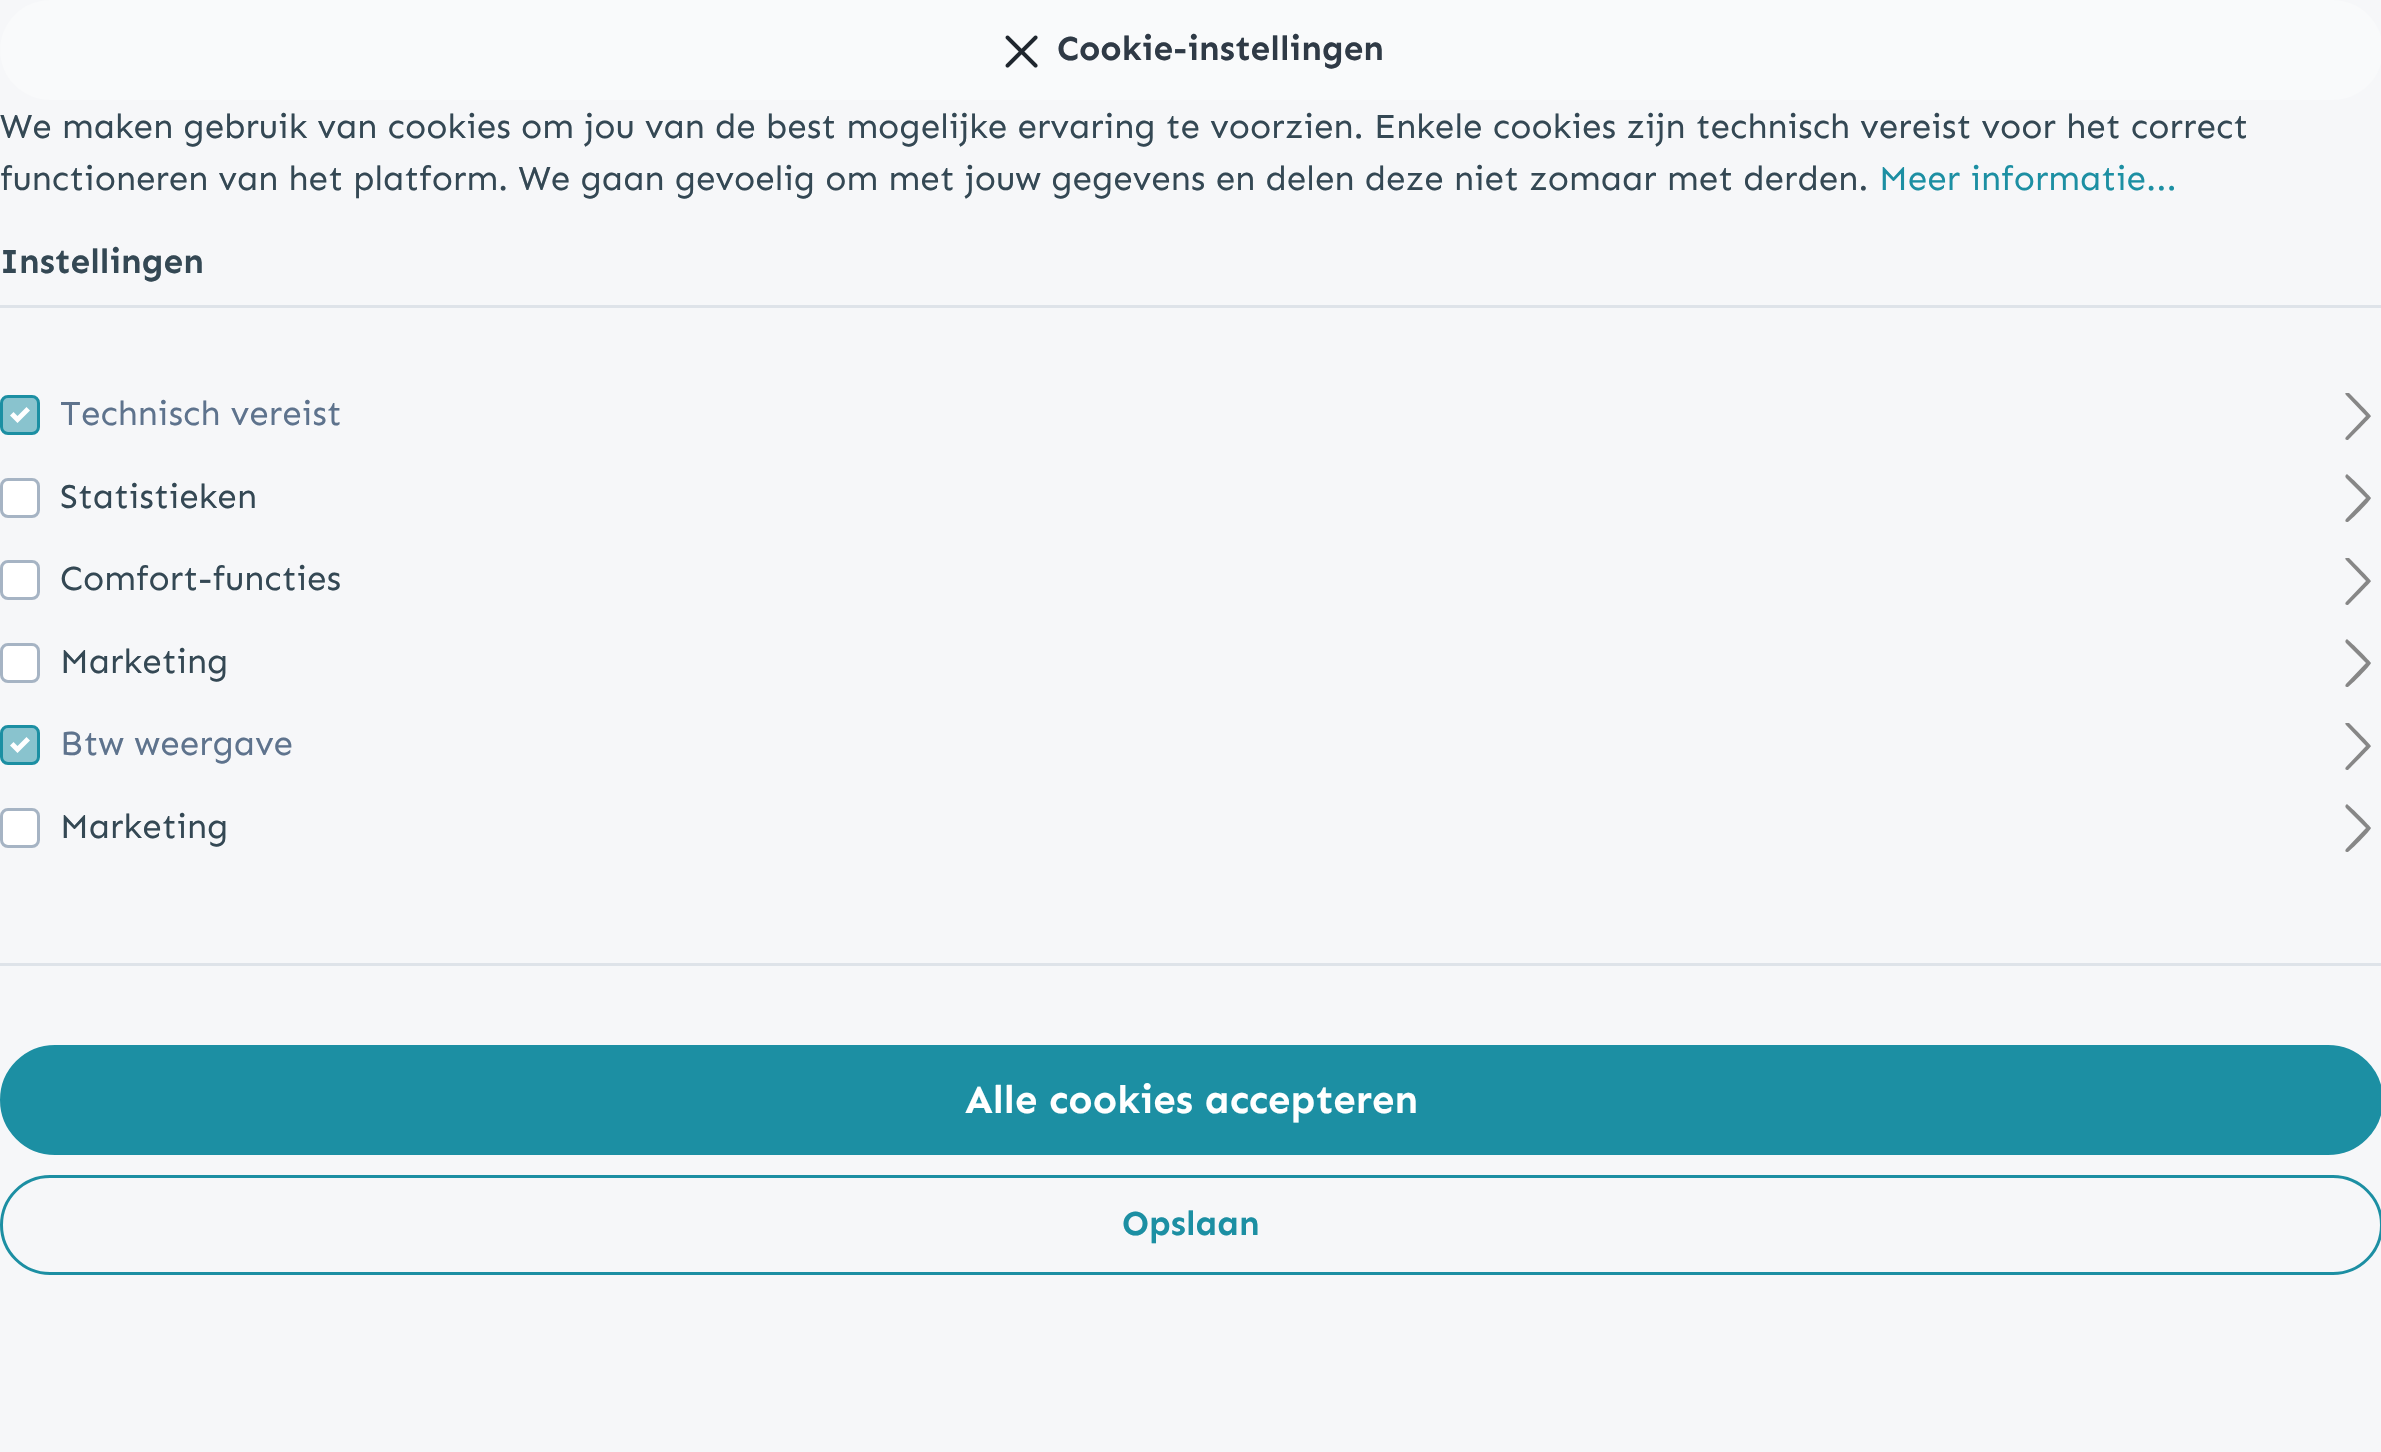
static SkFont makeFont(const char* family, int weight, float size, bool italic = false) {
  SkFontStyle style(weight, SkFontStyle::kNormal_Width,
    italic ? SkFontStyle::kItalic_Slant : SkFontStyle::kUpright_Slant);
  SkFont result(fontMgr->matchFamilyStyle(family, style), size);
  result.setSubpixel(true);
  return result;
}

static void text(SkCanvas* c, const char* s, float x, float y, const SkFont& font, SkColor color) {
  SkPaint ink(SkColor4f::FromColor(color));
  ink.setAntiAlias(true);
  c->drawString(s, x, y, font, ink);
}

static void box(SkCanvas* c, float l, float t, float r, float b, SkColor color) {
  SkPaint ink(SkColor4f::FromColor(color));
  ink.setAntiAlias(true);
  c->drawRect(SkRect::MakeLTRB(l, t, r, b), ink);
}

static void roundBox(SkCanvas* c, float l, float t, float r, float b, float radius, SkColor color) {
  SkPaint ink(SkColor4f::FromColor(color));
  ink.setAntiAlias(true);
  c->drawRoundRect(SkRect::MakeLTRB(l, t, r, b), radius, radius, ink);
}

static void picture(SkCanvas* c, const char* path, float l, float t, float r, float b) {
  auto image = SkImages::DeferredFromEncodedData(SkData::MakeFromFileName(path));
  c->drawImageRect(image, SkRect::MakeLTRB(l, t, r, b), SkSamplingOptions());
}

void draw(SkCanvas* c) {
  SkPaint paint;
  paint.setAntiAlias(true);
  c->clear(0xfff6f7f9);
  roundBox(c, 0, 0, 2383, 100, 50, 0xfff9fafb);
  picture(c, "img_01.png", 1005, 35, 1038, 68);
  SkFont face1 = makeFont("Sen", 700, 35);
  text(c, "Cookie-instellingen", 1057, 60, face1, 0xff2f3a46);
  box(c, 0, 305, 2381, 308, 0xffdee3e9);
  SkFont face2 = makeFont("Sen", 400, 35);
  text(c, "We maken gebruik van cookies om jou van de best mogelijke ervaring te voorzien. Enkele cookies zijn technisch vereist voor het correct", 0, 138, face2, 0xff344854);
  text(c, "functioneren van het platform. We gaan gevoelig om met jouw gegevens en delen deze niet zomaar met derden.", 0, 190, face2, 0xff344854);
  text(c, "Meer informatie...", 1879, 190, face2, 0xff1c8fa3);
  text(c, "Instellingen", 0, 273, face1, 0xff344854);
  box(c, 0, 963, 2381, 966, 0xffdee3e9);
  paint.setColor(0xff89c3ce);
  c->drawRoundRect(SkRect::MakeLTRB(1.5f, 396.5f, 38.5f, 433.5f), 6.5f, 6.5f, paint);
  paint.setStyle(SkPaint::kStroke_Style);
  paint.setStrokeWidth(3);
  paint.setColor(0xff1c8fa3);
  c->drawRoundRect(SkRect::MakeLTRB(1.5f, 396.5f, 38.5f, 433.5f), 6.5f, 6.5f, paint);
  text(c, "Technisch vereist", 60, 425, face2, 0xff5e738d);
  paint.setStyle(SkPaint::kFill_Style);
  paint.setColor(0xffffffff);
  c->drawPath(SkPathBuilder().moveTo(26.5f, 407).lineTo(17.5f, 416).lineTo(13.5f, 412).lineTo(10, 415.5f).lineTo(17.5f, 423).lineTo(30, 410.5f).close().detach(), paint);
  c->save();
  c->clipRect(SkRect::MakeLTRB(2335, 393, 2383, 440));
  paint.setColor(0xff878787);
  c->drawPath(SkPathBuilder(SkPathFillType::kEvenOdd).moveTo(2366, 416).lineTo(2346, 437).cubicTo(2345, 438, 2345, 440, 2347, 440).lineTo(2348, 440).cubicTo(2350, 438, 2371, 417, 2371, 416).cubicTo(2371, 415, 2350, 394, 2348, 392).lineTo(2347, 392).cubicTo(2345, 392, 2345, 394, 2346, 395).close().detach(), paint);
  c->restore();
  paint.setColor(0xffffffff);
  c->drawRoundRect(SkRect::MakeLTRB(1.5f, 479.5f, 38.5f, 516.5f), 6.5f, 6.5f, paint);
  paint.setStyle(SkPaint::kStroke_Style);
  paint.setColor(0xffa6b4c4);
  c->drawRoundRect(SkRect::MakeLTRB(1.5f, 479.5f, 38.5f, 516.5f), 6.5f, 6.5f, paint);
  text(c, "Statistieken", 60, 508, face2, 0xff344854);
  paint.setStyle(SkPaint::kFill_Style);
  paint.setColor(0xff878787);
  c->drawPath(SkPathBuilder(SkPathFillType::kEvenOdd).moveTo(2366, 498).lineTo(2346, 519).cubicTo(2345, 520, 2345, 522, 2347, 522).lineTo(2348, 522).cubicTo(2350, 521, 2371, 500, 2371, 498).cubicTo(2371, 497, 2350, 476, 2348, 475).lineTo(2347, 474).cubicTo(2345, 475, 2345, 477, 2346, 478).close().detach(), paint);
  paint.setColor(0xffffffff);
  c->drawRoundRect(SkRect::MakeLTRB(1.5f, 561.5f, 38.5f, 598.5f), 6.5f, 6.5f, paint);
  paint.setStyle(SkPaint::kStroke_Style);
  paint.setColor(0xffa6b4c4);
  c->drawRoundRect(SkRect::MakeLTRB(1.5f, 561.5f, 38.5f, 598.5f), 6.5f, 6.5f, paint);
  text(c, "Comfort-functies", 60, 590, face2, 0xff344854);
  c->save();
  c->clipRect(SkRect::MakeLTRB(2335, 558, 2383, 605));
  paint.setStyle(SkPaint::kFill_Style);
  paint.setColor(0xff878787);
  c->drawPath(SkPathBuilder(SkPathFillType::kEvenOdd).moveTo(2366, 581).lineTo(2346, 602).cubicTo(2345, 603, 2345, 605, 2347, 605).lineTo(2348, 605).cubicTo(2350, 603, 2371, 582, 2371, 581).cubicTo(2371, 580, 2350, 559, 2348, 557).lineTo(2347, 557).cubicTo(2345, 557, 2345, 559, 2346, 560).close().detach(), paint);
  c->restore();
  paint.setColor(0xffffffff);
  c->drawRoundRect(SkRect::MakeLTRB(1.5f, 644.5f, 38.5f, 681.5f), 6.5f, 6.5f, paint);
  paint.setStyle(SkPaint::kStroke_Style);
  paint.setColor(0xffa6b4c4);
  c->drawRoundRect(SkRect::MakeLTRB(1.5f, 644.5f, 38.5f, 681.5f), 6.5f, 6.5f, paint);
  text(c, "Marketing", 60, 673, face2, 0xff344854);
  paint.setStyle(SkPaint::kFill_Style);
  paint.setColor(0xff878787);
  c->drawPath(SkPathBuilder(SkPathFillType::kEvenOdd).moveTo(2366, 663).lineTo(2346, 684).cubicTo(2345, 685, 2345, 687, 2347, 687).lineTo(2348, 687).cubicTo(2350, 686, 2371, 665, 2371, 663).cubicTo(2371, 662, 2350, 641, 2348, 640).lineTo(2347, 639).cubicTo(2345, 640, 2345, 642, 2346, 643).close().detach(), paint);
  paint.setColor(0xff89c3ce);
  c->drawRoundRect(SkRect::MakeLTRB(1.5f, 726.5f, 38.5f, 763.5f), 6.5f, 6.5f, paint);
  paint.setStyle(SkPaint::kStroke_Style);
  paint.setColor(0xff1c8fa3);
  c->drawRoundRect(SkRect::MakeLTRB(1.5f, 726.5f, 38.5f, 763.5f), 6.5f, 6.5f, paint);
  text(c, "Btw weergave", 60, 755, face2, 0xff5e738d);
  paint.setStyle(SkPaint::kFill_Style);
  paint.setColor(0xffffffff);
  c->drawPath(SkPathBuilder().moveTo(26.5f, 737).lineTo(17.5f, 746).lineTo(13.5f, 742).lineTo(10, 745.5f).lineTo(17.5f, 753).lineTo(30, 740.5f).close().detach(), paint);
  c->save();
  c->clipRect(SkRect::MakeLTRB(2335, 723, 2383, 770));
  paint.setColor(0xff878787);
  c->drawPath(SkPathBuilder(SkPathFillType::kEvenOdd).moveTo(2366, 746).lineTo(2346, 767).cubicTo(2345, 768, 2345, 770, 2347, 770).lineTo(2348, 770).cubicTo(2350, 768, 2371, 747, 2371, 746).cubicTo(2371, 745, 2350, 724, 2348, 722).lineTo(2347, 722).cubicTo(2345, 722, 2345, 724, 2346, 725).close().detach(), paint);
  c->restore();
  paint.setColor(0xffffffff);
  c->drawRoundRect(SkRect::MakeLTRB(1.5f, 809.5f, 38.5f, 846.5f), 6.5f, 6.5f, paint);
  paint.setStyle(SkPaint::kStroke_Style);
  paint.setColor(0xffa6b4c4);
  c->drawRoundRect(SkRect::MakeLTRB(1.5f, 809.5f, 38.5f, 846.5f), 6.5f, 6.5f, paint);
  text(c, "Marketing", 60, 838, face2, 0xff344854);
  paint.setStyle(SkPaint::kFill_Style);
  paint.setColor(0xff878787);
  c->drawPath(SkPathBuilder(SkPathFillType::kEvenOdd).moveTo(2366, 828).lineTo(2346, 849).cubicTo(2345, 850, 2345, 852, 2347, 852).lineTo(2348, 852).cubicTo(2350, 851, 2371, 830, 2371, 828).cubicTo(2371, 827, 2350, 806, 2348, 805).lineTo(2347, 804).cubicTo(2345, 805, 2345, 807, 2346, 808).close().detach(), paint);
  paint.setColor(0xff1c8fa3);
  c->drawRoundRect(SkRect::MakeLTRB(1.5f, 1046.5f, 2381.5f, 1153.5f), 53.5f, 53.5f, paint);
  paint.setStyle(SkPaint::kStroke_Style);
  c->drawRoundRect(SkRect::MakeLTRB(1.5f, 1046.5f, 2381.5f, 1153.5f), 53.5f, 53.5f, paint);
  SkFont face3 = makeFont("Sen", 700, 40);
  text(c, "Alle cookies accepteren", 965, 1113, face3, 0xffffffff);
  c->drawRoundRect(SkRect::MakeLTRB(1.5f, 1176.5f, 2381.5f, 1273.5f), 48.5f, 48.5f, paint);
  text(c, "Opslaan", 1122, 1235, face1, 0xff1c8fa3);
}
